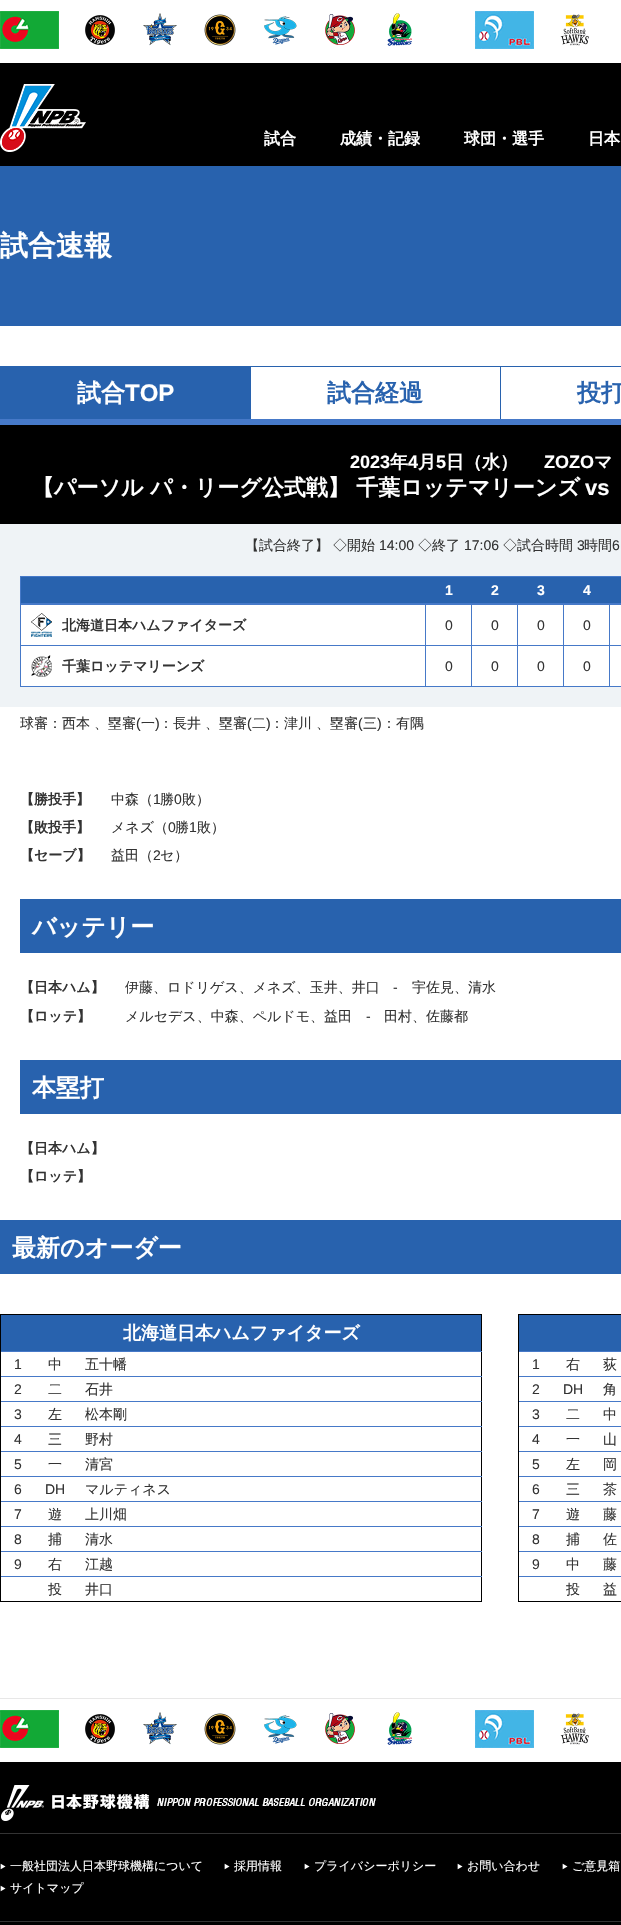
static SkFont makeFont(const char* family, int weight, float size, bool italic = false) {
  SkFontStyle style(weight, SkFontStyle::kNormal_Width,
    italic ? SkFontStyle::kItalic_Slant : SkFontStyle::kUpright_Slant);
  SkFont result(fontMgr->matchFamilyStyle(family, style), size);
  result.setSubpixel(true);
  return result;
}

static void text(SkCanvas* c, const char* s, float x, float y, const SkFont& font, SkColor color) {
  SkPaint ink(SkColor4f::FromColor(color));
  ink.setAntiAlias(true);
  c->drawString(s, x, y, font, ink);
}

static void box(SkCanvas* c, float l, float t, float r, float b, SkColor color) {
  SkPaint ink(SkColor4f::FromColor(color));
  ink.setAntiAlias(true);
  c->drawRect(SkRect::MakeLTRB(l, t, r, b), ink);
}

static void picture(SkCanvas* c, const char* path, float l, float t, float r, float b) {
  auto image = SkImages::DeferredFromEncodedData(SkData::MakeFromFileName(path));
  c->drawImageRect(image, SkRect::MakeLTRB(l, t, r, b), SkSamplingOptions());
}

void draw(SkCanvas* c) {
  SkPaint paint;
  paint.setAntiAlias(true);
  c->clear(0xffffffff);
  picture(c, "img_01.png", 0, 11, 59, 49);
  picture(c, "img_02.png", 85, 15, 115, 45);
  picture(c, "img_03.png", 143, 13, 177, 46);
  picture(c, "img_04.png", 204, 14, 236, 46);
  picture(c, "img_05.png", 264, 16, 297, 45);
  picture(c, "img_06.png", 325, 14, 355, 45);
  picture(c, "img_07.png", 387, 13, 412, 46);
  picture(c, "img_08.png", 475, 11, 534, 49);
  picture(c, "img_09.png", 560, 14, 589, 46);
  box(c, 0, 63, 621, 166, 0xff000000);
  picture(c, "img_10.png", 0, 84, 86, 152);
  SkFont face1 = makeFont("WenQuanYi Zen Hei", 700, 16);
  text(c, "試合", 264, 144, face1, 0xffffffff);
  text(c, "成績・記録", 340, 144, face1, 0xffffffff);
  text(c, "球団・選手", 464, 144, face1, 0xffffffff);
  text(c, "日本", 588, 144, face1, 0xffffffff);
  box(c, 0, 166, 621, 326, 0xff2862ae);
  SkFont face2 = makeFont("WenQuanYi Zen Hei", 700, 28);
  text(c, "試合速報", 0, 255, face2, 0xffffffff);
  box(c, 0, 419, 621, 425, 0xff4679c8);
  box(c, 0, 366, 621, 367, 0xff2862ae);
  box(c, 0, 367, 251, 419, 0xff2862ae);
  SkFont face3 = makeFont("WenQuanYi Zen Hei", 700, 24);
  text(c, "試合", 77, 401, face3, 0xffffffff);
  SkFont face4 = makeFont("Liberation Sans", 700, 24);
  text(c, "TOP", 125, 401, face4, 0xffffffff);
  text(c, "試合経過", 327, 401, face3, 0xff2862ae);
  box(c, 500, 367, 501, 419, 0xff2862ae);
  text(c, "投打", 577, 401, face3, 0xff2862ae);
  box(c, 0, 425, 621, 524, 0xff000000);
  SkFont face5 = makeFont("Liberation Sans", 700, 18);
  text(c, "2023", 350, 468, face5, 0xffffffff);
  SkFont face6 = makeFont("WenQuanYi Zen Hei", 700, 18);
  text(c, "年", 390, 468, face6, 0xffffffff);
  text(c, "4", 408, 468, face5, 0xffffffff);
  text(c, "月", 418, 468, face6, 0xffffffff);
  text(c, "5", 436, 468, face5, 0xffffffff);
  text(c, "日（水）", 446, 468, face6, 0xffffffff);
  text(c, "ZOZO", 544, 468, face5, 0xffffffff);
  text(c, "マ", 594, 468, face6, 0xffffffff);
  SkFont face7 = makeFont("WenQuanYi Zen Hei", 700, 22);
  text(c, "【パーソル パ・リーグ公式戦】 千葉ロッテマリーンズ", 32, 495, face7, 0xffffffff);
  SkFont face8 = makeFont("Liberation Sans", 700, 22);
  text(c, "vs", 585, 495, face8, 0xffffffff);
  box(c, 0, 524, 621, 707, 0xffeff3f6);
  SkFont face9 = makeFont("WenQuanYi Zen Hei", 500, 14);
  text(c, "【試合終了】", 245, 550, face9, 0xff333333);
  text(c, "◇開始", 333, 550, face9, 0xff333333);
  SkFont face10 = makeFont("Liberation Sans", 400, 14);
  text(c, "14:00", 379, 550, face10, 0xff333333);
  text(c, "◇終了", 418, 550, face9, 0xff333333);
  text(c, "17:06", 464, 550, face10, 0xff333333);
  text(c, "◇試合時間", 503, 550, face9, 0xff333333);
  text(c, "3", 577, 550, face10, 0xff333333);
  text(c, "時間", 584, 550, face9, 0xff333333);
  text(c, "6", 612, 550, face10, 0xff333333);
  paint.setStyle(SkPaint::kStroke_Style);
  paint.setStrokeWidth(1);
  paint.setColor(0xff4679c8);
  c->drawRect(SkRect::MakeLTRB(20.5f, 576.5f, 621.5f, 686.5f), paint);
  box(c, 21, 577, 621, 603, 0xff2862ae);
  SkFont face11 = makeFont("Liberation Sans", 700, 14);
  text(c, "1", 445, 595, face11, 0xffffffff);
  text(c, "2", 491, 595, face11, 0xffffffff);
  text(c, "3", 537, 595, face11, 0xffffffff);
  text(c, "4", 583, 595, face11, 0xffffffff);
  box(c, 609, 645, 621, 646, 0xff4679c8);
  box(c, 609, 645, 610, 687, 0xff4679c8);
  box(c, 563, 645, 610, 646, 0xff4679c8);
  box(c, 563, 645, 564, 687, 0xff4679c8);
  box(c, 517, 645, 564, 646, 0xff4679c8);
  box(c, 517, 645, 518, 687, 0xff4679c8);
  box(c, 471, 645, 518, 646, 0xff4679c8);
  box(c, 471, 645, 472, 687, 0xff4679c8);
  box(c, 425, 645, 472, 646, 0xff4679c8);
  box(c, 425, 645, 426, 687, 0xff4679c8);
  box(c, 21, 645, 426, 646, 0xff4679c8);
  box(c, 425, 604, 426, 646, 0xff4679c8);
  box(c, 471, 604, 472, 646, 0xff4679c8);
  box(c, 517, 604, 518, 646, 0xff4679c8);
  box(c, 563, 604, 564, 646, 0xff4679c8);
  box(c, 609, 604, 610, 646, 0xff4679c8);
  box(c, 20, 603, 621, 605, 0xff4679c8);
  box(c, 21, 605, 425, 645, 0xffffffff);
  picture(c, "img_11.png", 31, 613, 52, 637);
  SkFont face12 = makeFont("WenQuanYi Zen Hei", 700, 14);
  text(c, "北海道日本ハムファイターズ", 62, 630, face12, 0xff333333);
  box(c, 426, 605, 471, 645, 0xffffffff);
  text(c, "0", 445, 630, face10, 0xff333333);
  box(c, 472, 605, 517, 645, 0xffffffff);
  text(c, "0", 491, 630, face10, 0xff333333);
  box(c, 518, 605, 563, 645, 0xffffffff);
  text(c, "0", 537, 630, face10, 0xff333333);
  box(c, 564, 605, 609, 645, 0xffffffff);
  text(c, "0", 583, 630, face10, 0xff333333);
  box(c, 610, 605, 621, 645, 0xffffffff);
  box(c, 21, 646, 425, 686, 0xffffffff);
  picture(c, "img_12.png", 31, 655, 52, 677);
  text(c, "千葉ロッテマリーンズ", 62, 671, face12, 0xff333333);
  box(c, 426, 646, 471, 686, 0xffffffff);
  text(c, "0", 445, 671, face10, 0xff333333);
  box(c, 472, 646, 517, 686, 0xffffffff);
  text(c, "0", 491, 671, face10, 0xff333333);
  box(c, 518, 646, 563, 686, 0xffffffff);
  text(c, "0", 537, 671, face10, 0xff333333);
  box(c, 564, 646, 609, 686, 0xffffffff);
  text(c, "0", 583, 671, face10, 0xff333333);
  box(c, 610, 646, 621, 686, 0xffffffff);
  text(c, "球審：西本", 20, 728, face9, 0xff333333);
  text(c, "、塁審", 94, 728, face9, 0xff333333);
  text(c, "(", 136, 728, face10, 0xff333333);
  text(c, "一", 141, 728, face9, 0xff333333);
  text(c, ")", 155, 728, face10, 0xff333333);
  text(c, "：長井", 159, 728, face9, 0xff333333);
  text(c, "、塁審", 205, 728, face9, 0xff333333);
  text(c, "(", 247, 728, face10, 0xff333333);
  text(c, "二", 252, 728, face9, 0xff333333);
  text(c, ")", 266, 728, face10, 0xff333333);
  text(c, "：津川", 270, 728, face9, 0xff333333);
  text(c, "、塁審", 316, 728, face9, 0xff333333);
  text(c, "(", 358, 728, face10, 0xff333333);
  text(c, "三", 363, 728, face9, 0xff333333);
  text(c, ")", 377, 728, face10, 0xff333333);
  text(c, "：有隅", 382, 728, face9, 0xff333333);
  text(c, "【勝投手】", 20, 804, face12, 0xff333333);
  text(c, "中森（", 111, 804, face9, 0xff333333);
  text(c, "1", 153, 804, face10, 0xff333333);
  text(c, "勝", 160, 804, face9, 0xff333333);
  text(c, "0", 174, 804, face10, 0xff333333);
  text(c, "敗）", 182, 804, face9, 0xff333333);
  text(c, "【敗投手】", 20, 832, face12, 0xff333333);
  text(c, "メネズ（", 111, 832, face9, 0xff333333);
  text(c, "0", 168, 832, face10, 0xff333333);
  text(c, "勝", 175, 832, face9, 0xff333333);
  text(c, "1", 189, 832, face10, 0xff333333);
  text(c, "敗）", 197, 832, face9, 0xff333333);
  text(c, "【セーブ】", 20, 860, face12, 0xff333333);
  text(c, "益田（", 111, 860, face9, 0xff333333);
  text(c, "2", 153, 860, face10, 0xff333333);
  text(c, "セ）", 160, 860, face9, 0xff333333);
  box(c, 20, 899, 621, 953, 0xff2862ae);
  text(c, "バッテリー", 32, 935, face3, 0xffffffff);
  text(c, "【日本ハム】", 20, 992, face12, 0xff333333);
  text(c, "伊藤、ロドリゲス、メネズ、玉井、井口", 125, 992, face9, 0xff333333);
  text(c, "‐", 393, 992, face10, 0xff333333);
  text(c, "宇佐見、清水", 412, 992, face9, 0xff333333);
  text(c, "【ロッテ】", 20, 1021, face12, 0xff333333);
  text(c, "メルセデス、中森、ペルドモ、益田", 125, 1021, face9, 0xff333333);
  text(c, "‐", 366, 1021, face10, 0xff333333);
  text(c, "田村、佐藤都", 384, 1021, face9, 0xff333333);
  box(c, 20, 1060, 621, 1114, 0xff2862ae);
  text(c, "本塁打", 32, 1096, face3, 0xffffffff);
  text(c, "【日本ハム】", 20, 1153, face12, 0xff333333);
  text(c, "【ロッテ】", 20, 1181, face12, 0xff333333);
  box(c, 0, 1220, 621, 1274, 0xff2862ae);
  text(c, "最新のオーダー", 12, 1256, face3, 0xffffffff);
  paint.setColor(0xff000000);
  c->drawRect(SkRect::MakeLTRB(0.5f, 1314.5f, 481.5f, 1601.5f), paint);
  box(c, 1, 1315, 481, 1351, 0xff2862ae);
  text(c, "北海道日本ハムファイターズ", 123, 1339, face6, 0xffffffff);
  box(c, 1, 1351, 482, 1352, 0xff4679c8);
  text(c, "1", 14, 1369, face10, 0xff333333);
  text(c, "中", 48, 1369, face9, 0xff333333);
  text(c, "五十幡", 85, 1369, face9, 0xff333333);
  box(c, 1, 1376, 482, 1377, 0xff4679c8);
  text(c, "2", 14, 1394, face10, 0xff333333);
  text(c, "二", 48, 1394, face9, 0xff333333);
  text(c, "石井", 85, 1394, face9, 0xff333333);
  box(c, 1, 1401, 482, 1402, 0xff4679c8);
  text(c, "3", 14, 1419, face10, 0xff333333);
  text(c, "左", 48, 1419, face9, 0xff333333);
  text(c, "松本剛", 85, 1419, face9, 0xff333333);
  box(c, 1, 1426, 482, 1427, 0xff4679c8);
  text(c, "4", 14, 1444, face10, 0xff333333);
  text(c, "三", 48, 1444, face9, 0xff333333);
  text(c, "野村", 85, 1444, face9, 0xff333333);
  box(c, 1, 1451, 482, 1452, 0xff4679c8);
  text(c, "5", 14, 1469, face10, 0xff333333);
  text(c, "一", 48, 1469, face9, 0xff333333);
  text(c, "清宮", 85, 1469, face9, 0xff333333);
  box(c, 1, 1476, 482, 1477, 0xff4679c8);
  text(c, "6", 14, 1494, face10, 0xff333333);
  text(c, "DH", 45, 1494, face10, 0xff333333);
  text(c, "マルティネス", 85, 1494, face9, 0xff333333);
  box(c, 1, 1501, 482, 1502, 0xff4679c8);
  text(c, "7", 14, 1519, face10, 0xff333333);
  text(c, "遊", 48, 1519, face9, 0xff333333);
  text(c, "上川畑", 85, 1519, face9, 0xff333333);
  box(c, 1, 1526, 482, 1527, 0xff4679c8);
  text(c, "8", 14, 1544, face10, 0xff333333);
  text(c, "捕", 48, 1544, face9, 0xff333333);
  text(c, "清水", 85, 1544, face9, 0xff333333);
  box(c, 1, 1551, 482, 1552, 0xff4679c8);
  text(c, "9", 14, 1569, face10, 0xff333333);
  text(c, "右", 48, 1569, face9, 0xff333333);
  text(c, "江越", 85, 1569, face9, 0xff333333);
  box(c, 1, 1576, 482, 1577, 0xff4679c8);
  text(c, "投", 48, 1594, face9, 0xff333333);
  text(c, "井口", 85, 1594, face9, 0xff333333);
  c->drawRect(SkRect::MakeLTRB(518.5f, 1314.5f, 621.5f, 1601.5f), paint);
  box(c, 519, 1315, 621, 1351, 0xff2862ae);
  text(c, "1", 532, 1369, face10, 0xff333333);
  text(c, "右", 566, 1369, face9, 0xff333333);
  box(c, 519, 1351, 621, 1352, 0xff4679c8);
  text(c, "荻", 603, 1369, face9, 0xff333333);
  text(c, "2", 532, 1394, face10, 0xff333333);
  text(c, "DH", 563, 1394, face10, 0xff333333);
  box(c, 519, 1376, 621, 1377, 0xff4679c8);
  text(c, "角", 603, 1394, face9, 0xff333333);
  text(c, "3", 532, 1419, face10, 0xff333333);
  text(c, "二", 566, 1419, face9, 0xff333333);
  box(c, 519, 1401, 621, 1402, 0xff4679c8);
  text(c, "中", 603, 1419, face9, 0xff333333);
  text(c, "4", 532, 1444, face10, 0xff333333);
  text(c, "一", 566, 1444, face9, 0xff333333);
  box(c, 519, 1426, 621, 1427, 0xff4679c8);
  text(c, "山", 603, 1444, face9, 0xff333333);
  text(c, "5", 532, 1469, face10, 0xff333333);
  text(c, "左", 566, 1469, face9, 0xff333333);
  box(c, 519, 1451, 621, 1452, 0xff4679c8);
  text(c, "岡", 603, 1469, face9, 0xff333333);
  text(c, "6", 532, 1494, face10, 0xff333333);
  text(c, "三", 566, 1494, face9, 0xff333333);
  box(c, 519, 1476, 621, 1477, 0xff4679c8);
  text(c, "茶", 603, 1494, face9, 0xff333333);
  text(c, "7", 532, 1519, face10, 0xff333333);
  text(c, "遊", 566, 1519, face9, 0xff333333);
  box(c, 519, 1501, 621, 1502, 0xff4679c8);
  text(c, "藤", 603, 1519, face9, 0xff333333);
  text(c, "8", 532, 1544, face10, 0xff333333);
  text(c, "捕", 566, 1544, face9, 0xff333333);
  box(c, 519, 1526, 621, 1527, 0xff4679c8);
  text(c, "佐", 603, 1544, face9, 0xff333333);
  text(c, "9", 532, 1569, face10, 0xff333333);
  text(c, "中", 566, 1569, face9, 0xff333333);
  box(c, 519, 1551, 621, 1552, 0xff4679c8);
  text(c, "藤", 603, 1569, face9, 0xff333333);
  text(c, "投", 566, 1594, face9, 0xff333333);
  box(c, 519, 1576, 621, 1577, 0xff4679c8);
  text(c, "益", 603, 1594, face9, 0xff333333);
  box(c, 0, 1762, 621, 1925, 0xff000000);
  box(c, 0, 1698, 621, 1699, 0xffe7e7e7);
  picture(c, "img_01.png", 0, 1710, 59, 1748);
  picture(c, "img_02.png", 85, 1714, 115, 1744);
  picture(c, "img_03.png", 143, 1712, 177, 1745);
  picture(c, "img_04.png", 204, 1713, 236, 1745);
  picture(c, "img_05.png", 264, 1715, 297, 1744);
  picture(c, "img_06.png", 325, 1713, 355, 1744);
  picture(c, "img_07.png", 387, 1712, 412, 1745);
  picture(c, "img_08.png", 475, 1710, 534, 1748);
  picture(c, "img_09.png", 560, 1713, 589, 1745);
  picture(c, "img_13.png", 1, 1785, 376, 1821);
  box(c, 0, 1833, 621, 1834, 0xff333333);
  box(c, 0, 1921, 621, 1922, 0xff333333);
  picture(c, "img_14.png", 0, 1863, 6, 1870);
  SkFont face13 = makeFont("WenQuanYi Zen Hei", 500, 12);
  text(c, "一般社団法人日本野球機構について", 10, 1870, face13, 0xffffffff);
  picture(c, "img_14.png", 224, 1863, 230, 1870);
  text(c, "採用情報", 234, 1870, face13, 0xffffffff);
  picture(c, "img_14.png", 304, 1863, 310, 1870);
  text(c, "プライバシーポリシー", 314, 1870, face13, 0xffffffff);
  picture(c, "img_14.png", 457, 1863, 463, 1870);
  text(c, "お問い合わせ", 467, 1870, face13, 0xffffffff);
  picture(c, "img_14.png", 562, 1863, 568, 1870);
  text(c, "ご意見箱", 572, 1870, face13, 0xffffffff);
  picture(c, "img_14.png", 0, 1885, 6, 1892);
  text(c, "サイトマップ", 10, 1892, face13, 0xffffffff);
}
